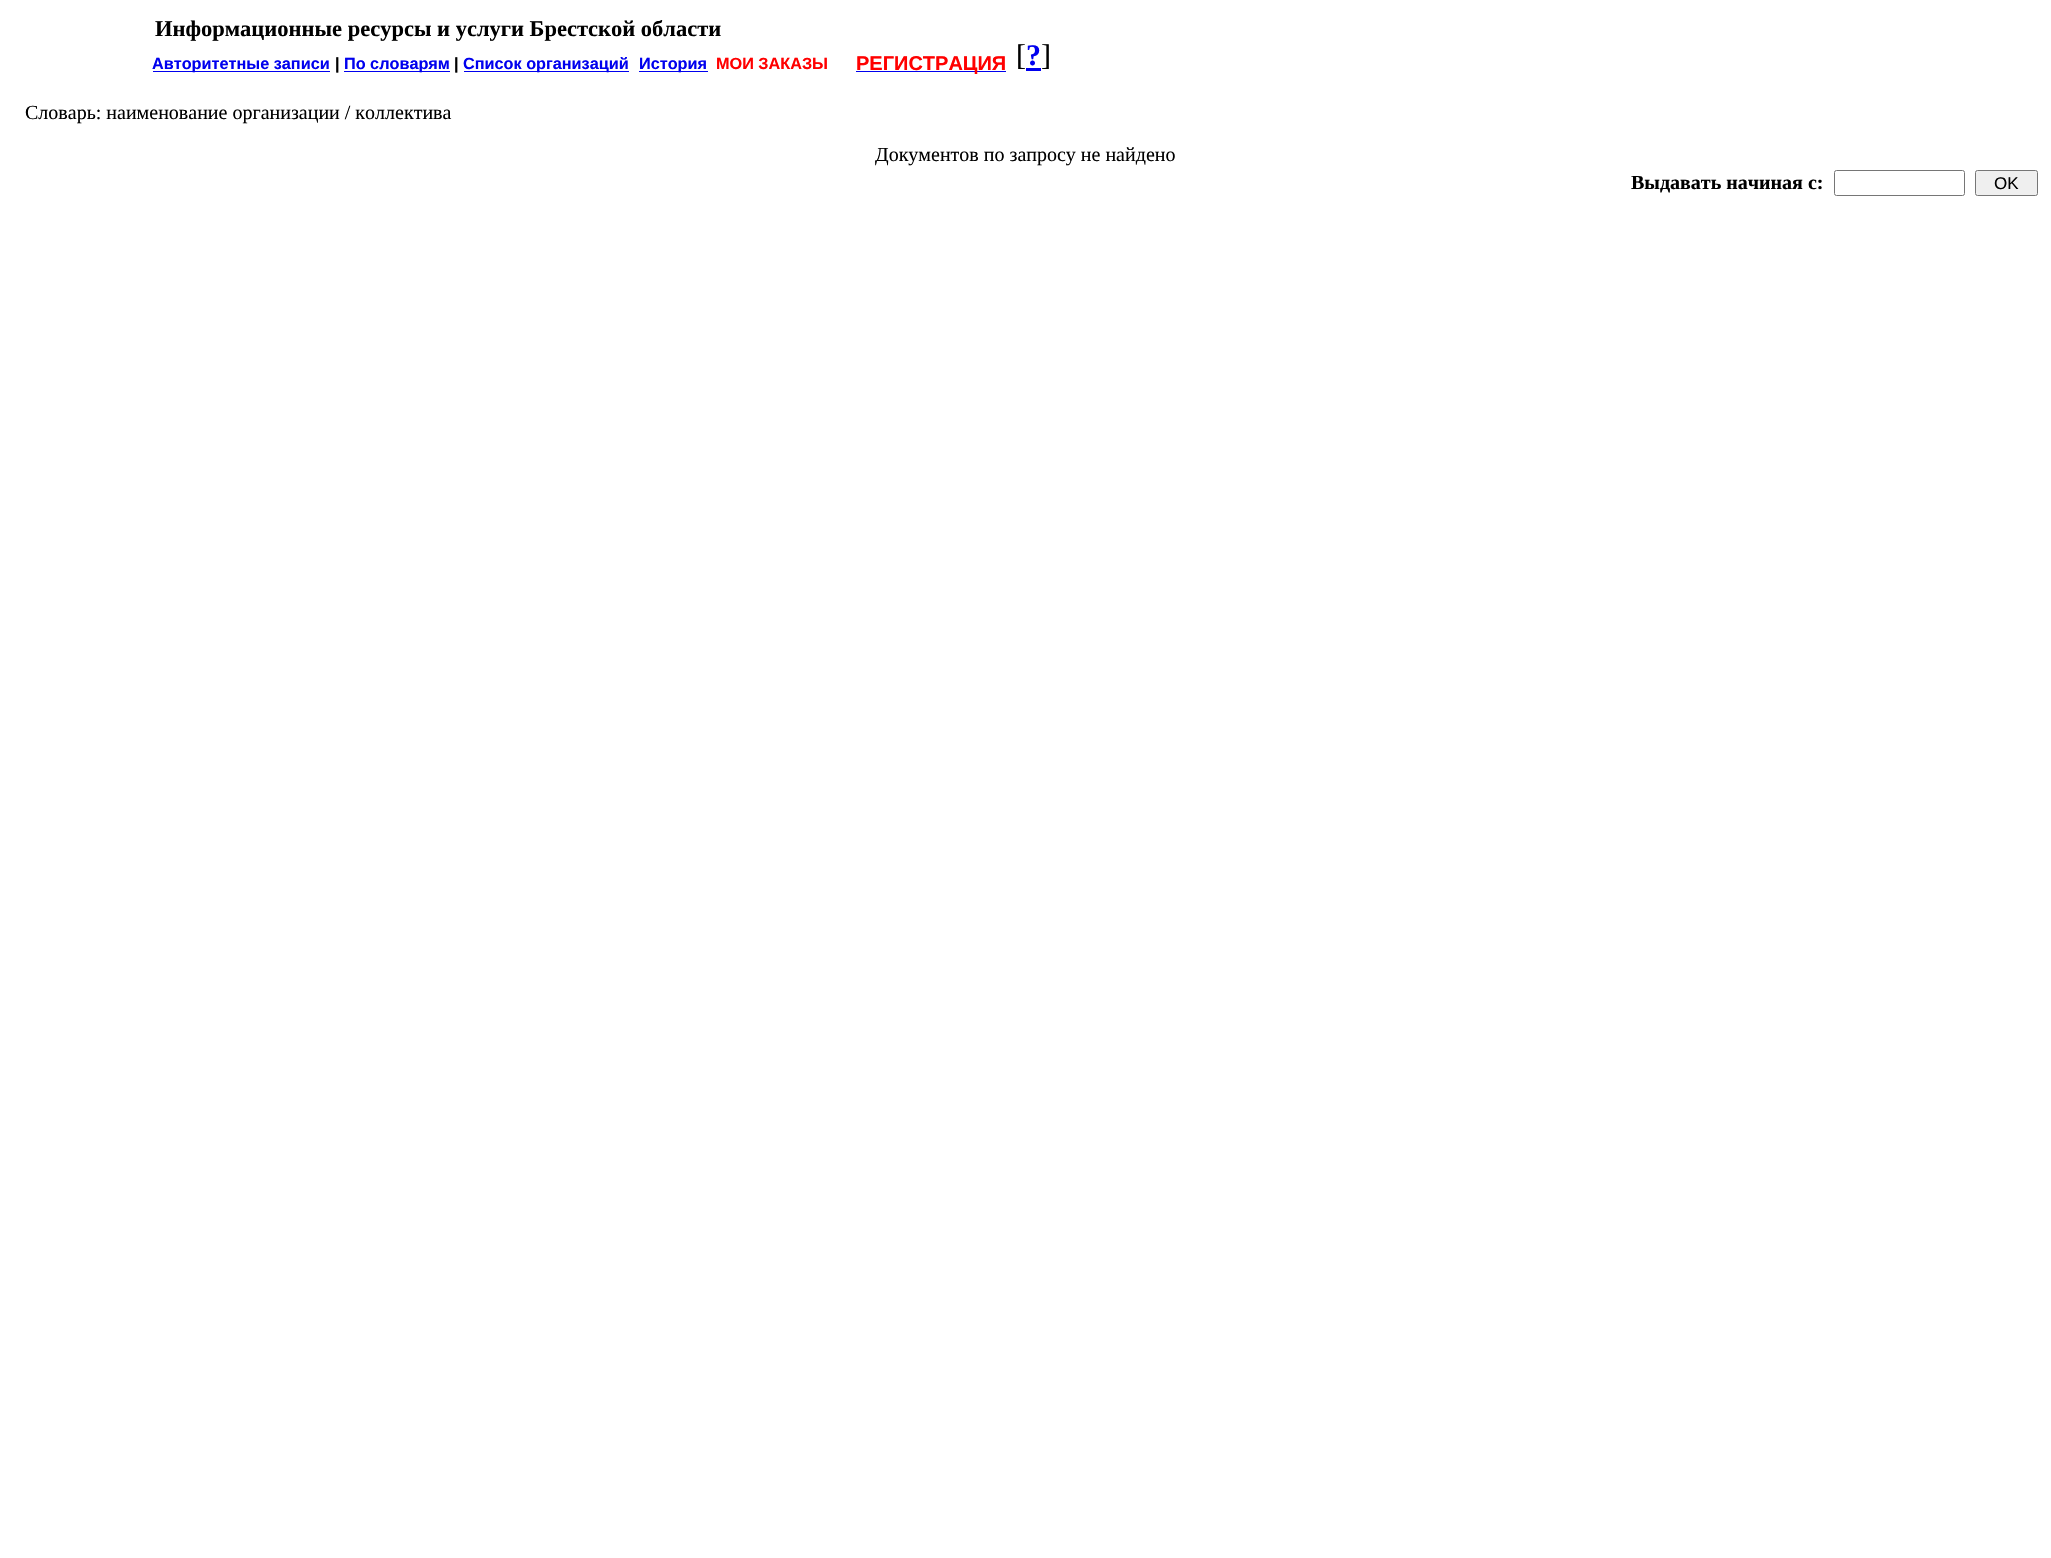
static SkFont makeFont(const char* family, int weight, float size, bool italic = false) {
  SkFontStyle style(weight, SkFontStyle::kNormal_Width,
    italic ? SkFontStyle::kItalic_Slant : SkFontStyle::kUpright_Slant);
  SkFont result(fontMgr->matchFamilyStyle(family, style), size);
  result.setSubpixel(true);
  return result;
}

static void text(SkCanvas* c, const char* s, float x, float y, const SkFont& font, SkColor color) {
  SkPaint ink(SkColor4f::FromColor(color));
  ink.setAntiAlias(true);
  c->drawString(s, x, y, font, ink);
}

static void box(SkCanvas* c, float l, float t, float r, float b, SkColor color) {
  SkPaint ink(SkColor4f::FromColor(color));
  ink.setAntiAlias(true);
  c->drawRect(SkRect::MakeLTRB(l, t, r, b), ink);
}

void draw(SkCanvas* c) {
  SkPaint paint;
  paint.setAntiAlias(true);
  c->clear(0xffffffff);
  SkFont face1 = makeFont("Liberation Serif", 700, 22.5f);
  text(c, "Информационные ресурсы и услуги Брестской области", 155, 36, face1, 0xff000000);
  SkFont face2 = makeFont("Liberation Serif", 400, 30);
  text(c, "[", 1016, 65, face2, 0xff000000);
  box(c, 1026, 68, 1041, 71, 0xff0000ee);
  SkFont face3 = makeFont("Liberation Serif", 700, 30);
  text(c, "?", 1026, 65, face3, 0xff0000ee);
  text(c, "]", 1041, 65, face2, 0xff000000);
  box(c, 153, 71, 330, 72, 0xff0000ee);
  SkFont face4 = makeFont("Liberation Sans", 700, 16.25f);
  text(c, "Авторитетные записи", 152, 69, face4, 0xff0000ee);
  text(c, "|", 335, 69, face4, 0xff000000);
  box(c, 344, 71, 450, 72, 0xff0000ee);
  text(c, "По словарям", 344, 69, face4, 0xff0000ee);
  text(c, "|", 454, 69, face4, 0xff000000);
  box(c, 464, 71, 629, 72, 0xff0000ee);
  text(c, "Список организаций", 463, 69, face4, 0xff0000ee);
  box(c, 639, 71, 708, 72, 0xff0000ee);
  text(c, "История", 639, 69, face4, 0xff0000ee);
  text(c, "МОИ ЗАКАЗЫ", 716, 69, face4, 0xffff0000);
  box(c, 856, 71, 1006, 72, 0xff0000ee);
  SkFont face5 = makeFont("Liberation Sans", 700, 20);
  text(c, "РЕГИСТРАЦИЯ", 856, 70, face5, 0xffff0000);
  SkFont face6 = makeFont("Liberation Serif", 400, 20);
  text(c, "Словарь: наименование организации / коллектива", 25, 119, face6, 0xff000000);
  text(c, "Документов по запросу не найдено", 875, 161, face6, 0xff000000);
  SkFont face7 = makeFont("Liberation Serif", 700, 20);
  text(c, "Выдавать начиная с:", 1631, 189, face7, 0xff000000);
  paint.setStyle(SkPaint::kStroke_Style);
  paint.setStrokeWidth(1);
  paint.setColor(0xff767676);
  c->drawRoundRect(SkRect::MakeLTRB(1834.5f, 170.5f, 1964.5f, 195.5f), 2, 2, paint);
  paint.setStyle(SkPaint::kFill_Style);
  paint.setColor(0xffefefef);
  c->drawRoundRect(SkRect::MakeLTRB(1975.5f, 170.5f, 2037.5f, 195.5f), 2, 2, paint);
  paint.setStyle(SkPaint::kStroke_Style);
  paint.setColor(0xff767676);
  c->drawRoundRect(SkRect::MakeLTRB(1975.5f, 170.5f, 2037.5f, 195.5f), 2, 2, paint);
  SkFont face8 = makeFont("Liberation Sans", 400, 17);
  text(c, "OK", 1994, 189, face8, 0xff000000);
}
